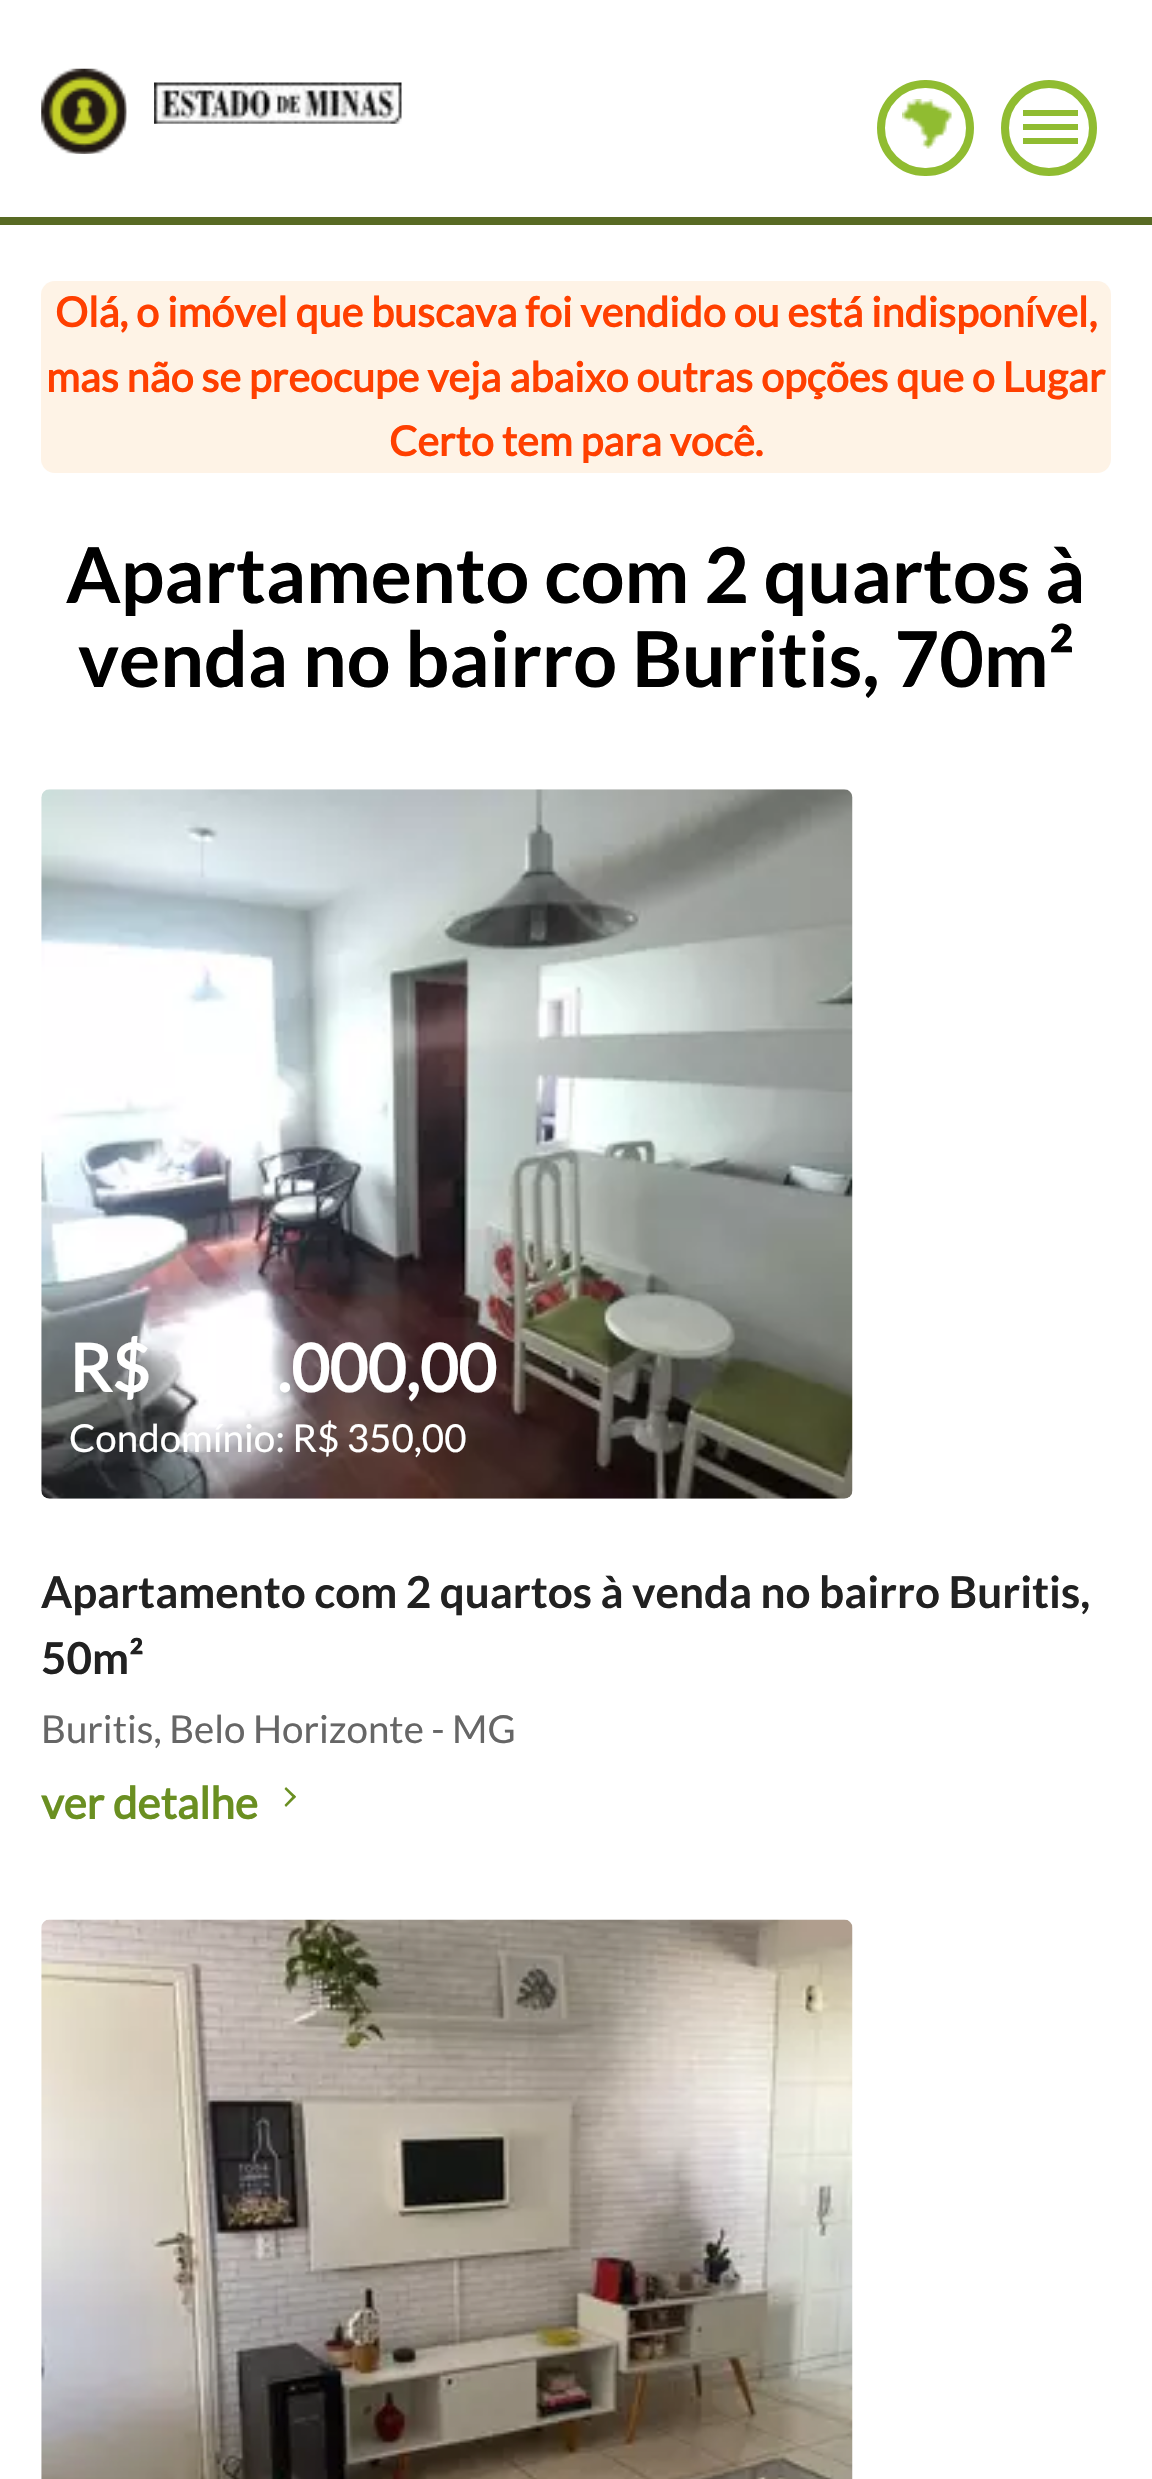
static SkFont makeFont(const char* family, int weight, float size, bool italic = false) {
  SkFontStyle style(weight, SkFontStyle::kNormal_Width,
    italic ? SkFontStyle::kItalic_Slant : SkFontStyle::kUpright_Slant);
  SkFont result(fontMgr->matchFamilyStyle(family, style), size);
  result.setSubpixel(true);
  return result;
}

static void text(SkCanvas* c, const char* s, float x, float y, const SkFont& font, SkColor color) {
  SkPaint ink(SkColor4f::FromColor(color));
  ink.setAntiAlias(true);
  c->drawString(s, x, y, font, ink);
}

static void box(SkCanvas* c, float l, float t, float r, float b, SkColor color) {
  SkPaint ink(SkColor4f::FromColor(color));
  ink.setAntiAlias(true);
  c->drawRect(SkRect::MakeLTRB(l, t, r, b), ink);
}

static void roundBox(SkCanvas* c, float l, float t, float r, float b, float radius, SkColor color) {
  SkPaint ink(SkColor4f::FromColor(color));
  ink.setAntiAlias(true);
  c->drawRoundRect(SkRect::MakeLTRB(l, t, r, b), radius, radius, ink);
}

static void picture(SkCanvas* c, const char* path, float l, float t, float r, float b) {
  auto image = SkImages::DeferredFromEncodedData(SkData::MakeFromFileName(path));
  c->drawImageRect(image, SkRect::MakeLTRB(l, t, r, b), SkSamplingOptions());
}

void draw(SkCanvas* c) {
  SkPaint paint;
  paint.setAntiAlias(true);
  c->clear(0xffffffff);
  box(c, 0, 217, 1152, 225, 0xff586a23);
  picture(c, "img_01.png", 41, 68, 127, 154);
  picture(c, "img_02.png", 154, 82, 402, 124);
  paint.setStyle(SkPaint::kStroke_Style);
  paint.setStrokeWidth(8);
  paint.setColor(0xff90bc31);
  c->drawRoundRect(SkRect::MakeLTRB(881, 84, 970, 172), 44, 44, paint);
  picture(c, "img_03.png", 902, 99, 952, 149);
  c->drawCircle(1049, 128, 44, paint);
  box(c, 1023, 110, 1078, 116, 0xff90bc31);
  box(c, 1023, 124, 1078, 130, 0xff90bc31);
  box(c, 1023, 138, 1078, 144, 0xff90bc31);
  roundBox(c, 41, 281, 1111, 473, 14, 0xfffef3e6);
  SkFont face1 = makeFont("Lato", 700, 41.25f);
  text(c, "Olá, o imóvel que buscava foi vendido ou está indisponível,", 55, 327, face1, 0xffff3f00);
  text(c, "mas não se preocupe veja abaixo outras opções que o Lugar", 46, 392, face1, 0xffff3f00);
  text(c, "Certo tem para você.", 389, 456, face1, 0xffff3f00);
  SkFont face2 = makeFont("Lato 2", 700, 77);
  text(c, "Apartamento com 2 quartos à", 66, 603, face2, 0xff000000);
  text(c, "venda no bairro Buritis, 70m²", 78, 687, face2, 0xff000000);
  picture(c, "img_04.png", 41, 789, 853, 1499);
  SkFont face3 = makeFont("Lato", 700, 66);
  text(c, "R$", 69, 1392, face3, 0xffffffff);
  text(c, ".000,00", 277, 1392, face3, 0xffffffff);
  SkFont face4 = makeFont("Lato", 400, 38.5f);
  text(c, "Condomínio: R$ 350,00", 69, 1452, face4, 0xffffffff);
  SkFont face5 = makeFont("Lato 2", 700, 44);
  text(c, "Apartamento com 2 quartos à venda no bairro Buritis,", 41, 1608, face5, 0xff212121);
  text(c, "50m²", 41, 1674, face5, 0xff212121);
  text(c, "Buritis, Belo Horizonte - MG", 41, 1743, face4, 0xff666666);
  SkFont face6 = makeFont("Lato", 700, 44);
  text(c, "ver detalhe", 41, 1819, face6, 0xff6a8f21);
  paint.setStyle(SkPaint::kFill_Style);
  paint.setColor(0xff6a8f21);
  c->drawPath(SkPathBuilder().moveTo(296, 1796.5f).lineTo(294, 1798.5f).lineTo(284.5f, 1789).lineTo(286, 1787).close().detach(), paint);
  c->drawPath(SkPathBuilder().moveTo(294, 1795).lineTo(296, 1797).lineTo(286, 1807).lineTo(284.5f, 1805).close().detach(), paint);
  picture(c, "img_05.png", 41, 1919, 853, 2479);
}
